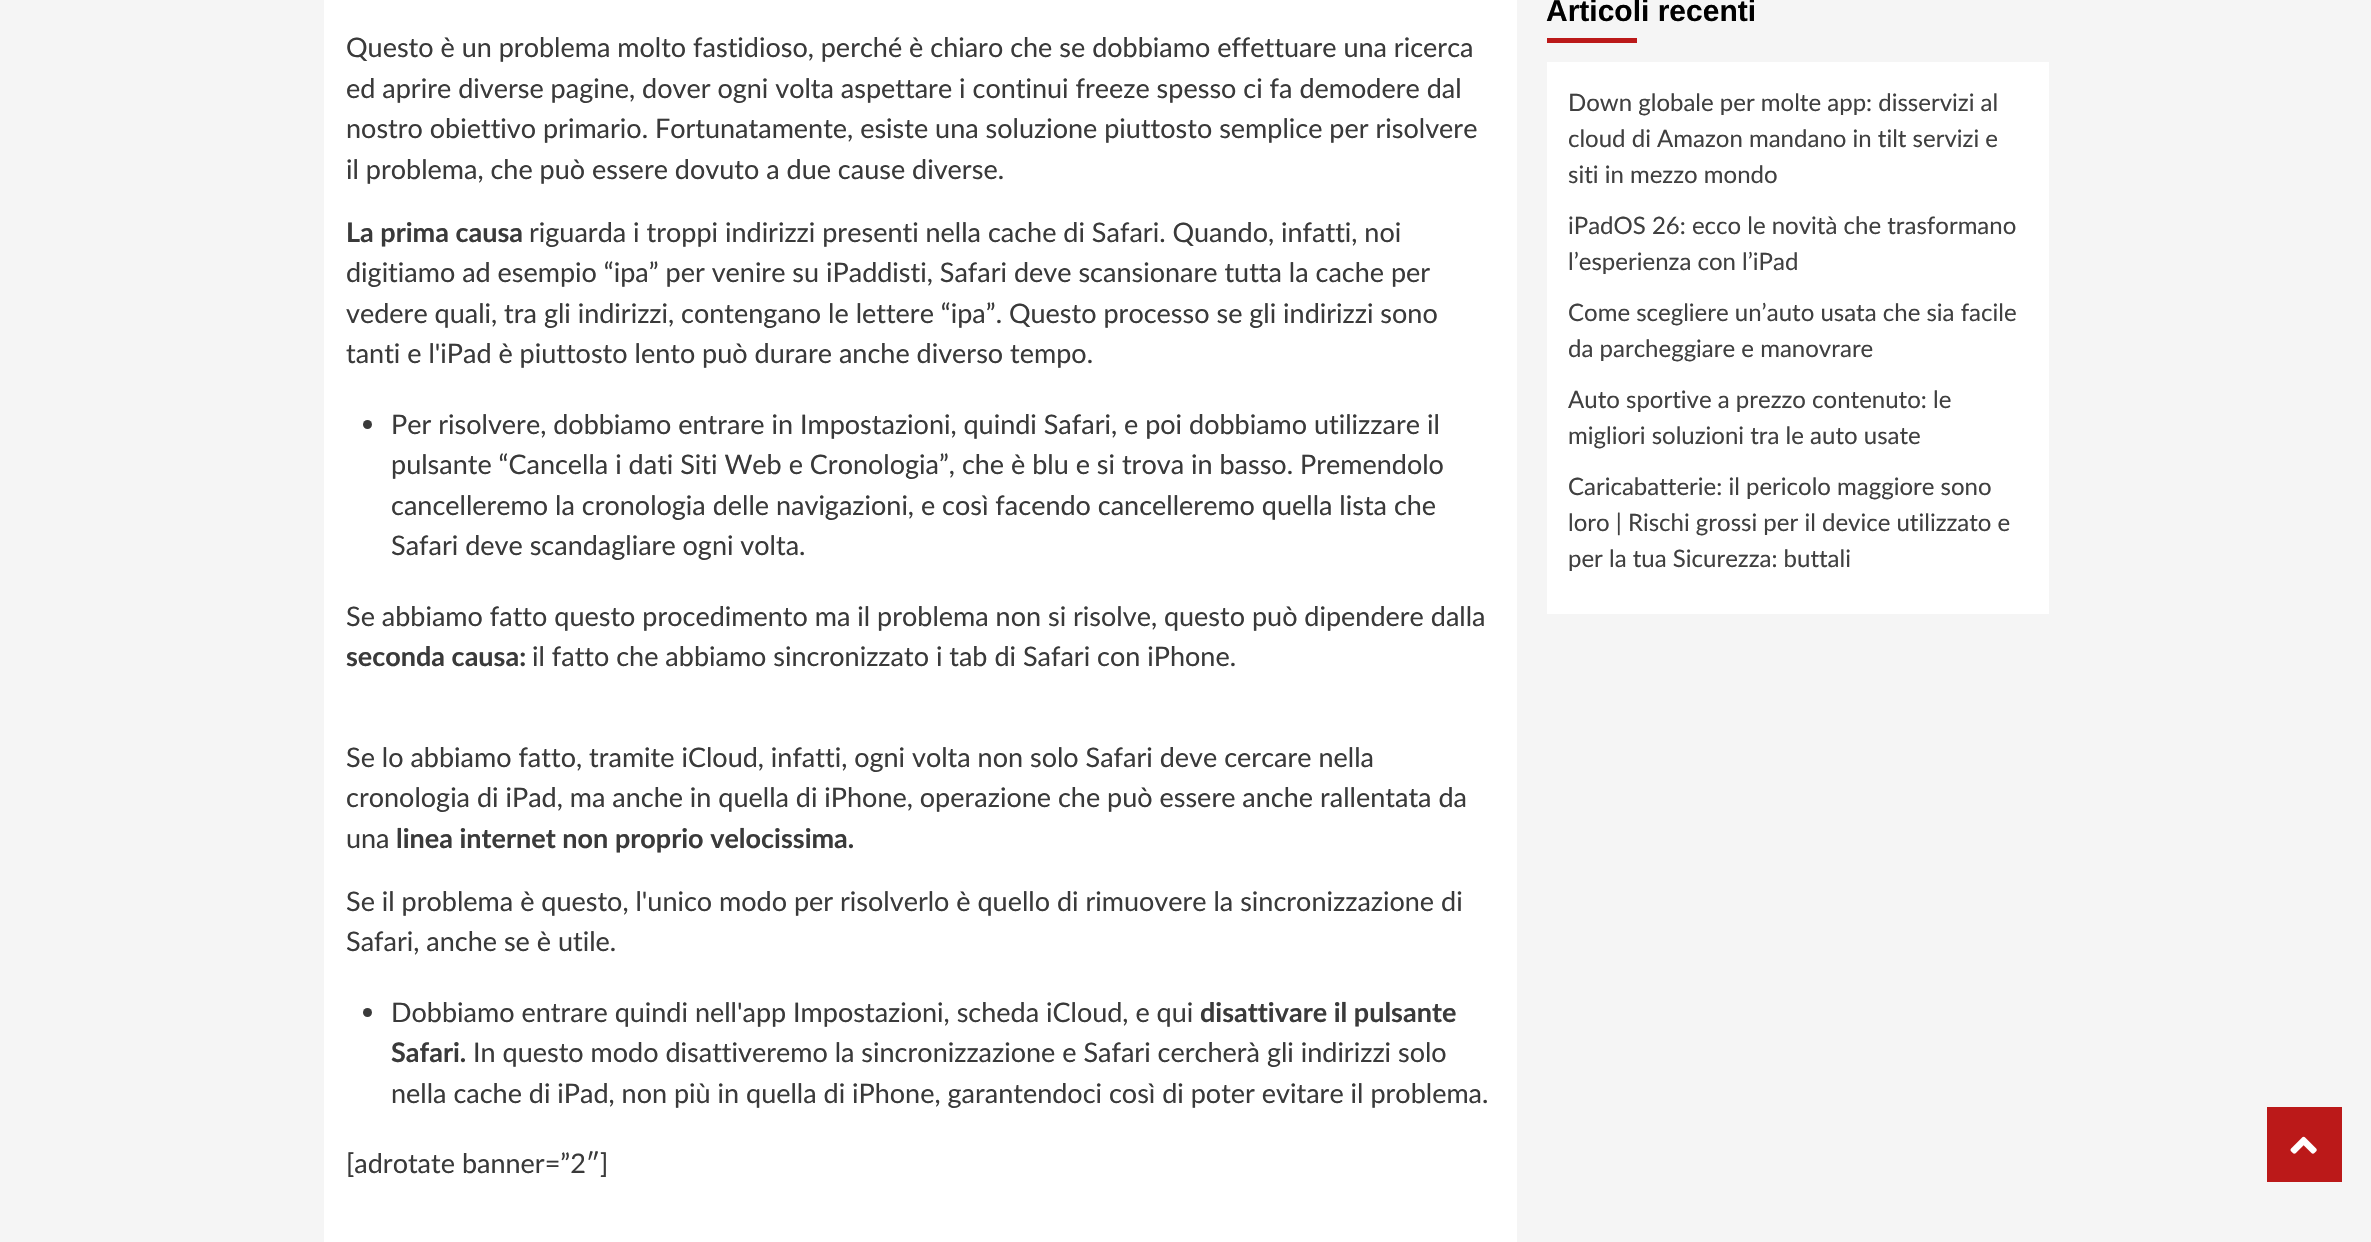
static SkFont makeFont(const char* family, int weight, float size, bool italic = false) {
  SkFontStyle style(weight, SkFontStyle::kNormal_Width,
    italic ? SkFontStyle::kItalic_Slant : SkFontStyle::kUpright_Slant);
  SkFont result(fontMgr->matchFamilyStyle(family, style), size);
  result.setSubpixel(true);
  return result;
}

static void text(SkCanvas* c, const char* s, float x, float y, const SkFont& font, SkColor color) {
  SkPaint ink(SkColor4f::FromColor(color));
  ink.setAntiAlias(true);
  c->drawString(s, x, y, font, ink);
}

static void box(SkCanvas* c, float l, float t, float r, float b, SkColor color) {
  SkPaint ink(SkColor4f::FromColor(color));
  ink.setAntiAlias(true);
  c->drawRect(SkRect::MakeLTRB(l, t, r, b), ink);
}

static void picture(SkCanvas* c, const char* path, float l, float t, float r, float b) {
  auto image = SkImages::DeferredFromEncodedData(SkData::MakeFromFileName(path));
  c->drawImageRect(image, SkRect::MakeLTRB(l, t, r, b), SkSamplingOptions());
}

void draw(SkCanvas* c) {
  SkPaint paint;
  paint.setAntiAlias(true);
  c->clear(0xfff5f5f5);
  box(c, 324, 0, 1517, 1242, 0xffffffff);
  SkFont face1 = makeFont("Lato", 400, 27);
  text(c, "Questo è un problema molto fastidioso, perché è chiaro che se dobbiamo effettuare una ricerca", 346, 57, face1, 0xff3a3a3a);
  text(c, "ed aprire diverse pagine, dover ogni volta aspettare i continui freeze spesso ci fa demodere dal", 346, 98, face1, 0xff3a3a3a);
  text(c, "nostro obiettivo primario. Fortunatamente, esiste una soluzione piuttosto semplice per risolvere", 346, 138, face1, 0xff3a3a3a);
  text(c, "il problema, che può essere dovuto a due cause diverse.", 346, 179, face1, 0xff3a3a3a);
  SkFont face2 = makeFont("Lato", 700, 27);
  text(c, "La prima causa", 346, 242, face2, 0xff3a3a3a);
  text(c, "riguarda i troppi indirizzi presenti nella cache di Safari. Quando, infatti, noi", 529, 242, face1, 0xff3a3a3a);
  text(c, "digitiamo ad esempio “ipa” per venire su iPaddisti, Safari deve scansionare tutta la cache per", 346, 282, face1, 0xff3a3a3a);
  text(c, "vedere quali, tra gli indirizzi, contengano le lettere “ipa”. Questo processo se gli indirizzi sono", 346, 323, face1, 0xff3a3a3a);
  text(c, "tanti e l'iPad è piuttosto lento può durare anche diverso tempo.", 346, 363, face1, 0xff3a3a3a);
  paint.setColor(0xff3a3a3a);
  c->drawCircle(367.5f, 424.5f, 4.5f, paint);
  text(c, "Per risolvere, dobbiamo entrare in Impostazioni, quindi Safari, e poi dobbiamo utilizzare il", 391, 434, face1, 0xff3a3a3a);
  text(c, "pulsante “Cancella i dati Siti Web e Cronologia”, che è blu e si trova in basso. Premendolo", 391, 474, face1, 0xff3a3a3a);
  text(c, "cancelleremo la cronologia delle navigazioni, e così facendo cancelleremo quella lista che", 391, 515, face1, 0xff3a3a3a);
  text(c, "Safari deve scandagliare ogni volta.", 391, 555, face1, 0xff3a3a3a);
  text(c, "Se abbiamo fatto questo procedimento ma il problema non si risolve, questo può dipendere dalla", 346, 626, face1, 0xff3a3a3a);
  text(c, "seconda causa:", 346, 666, face2, 0xff3a3a3a);
  text(c, "il fatto che abbiamo sincronizzato i tab di Safari con iPhone.", 532, 666, face1, 0xff3a3a3a);
  text(c, "Se lo abbiamo fatto, tramite iCloud, infatti, ogni volta non solo Safari deve cercare nella", 346, 767, face1, 0xff3a3a3a);
  text(c, "cronologia di iPad, ma anche in quella di iPhone, operazione che può essere anche rallentata da", 346, 807, face1, 0xff3a3a3a);
  text(c, "una", 346, 848, face1, 0xff3a3a3a);
  text(c, "linea internet non proprio velocissima.", 396, 848, face2, 0xff3a3a3a);
  text(c, "Se il problema è questo, l'unico modo per risolverlo è quello di rimuovere la sincronizzazione di", 346, 911, face1, 0xff3a3a3a);
  text(c, "Safari, anche se è utile.", 346, 951, face1, 0xff3a3a3a);
  c->drawCircle(367.5f, 1012.5f, 4.5f, paint);
  text(c, "Dobbiamo entrare quindi nell'app Impostazioni, scheda iCloud, e qui", 391, 1022, face1, 0xff3a3a3a);
  text(c, "disattivare il pulsante", 1200, 1022, face2, 0xff3a3a3a);
  text(c, "Safari.", 391, 1062, face2, 0xff3a3a3a);
  text(c, "In questo modo disattiveremo la sincronizzazione e Safari cercherà gli indirizzi solo", 473, 1062, face1, 0xff3a3a3a);
  text(c, "nella cache di iPad, non più in quella di iPhone, garantendoci così di poter evitare il problema.", 391, 1103, face1, 0xff3a3a3a);
  text(c, "[adrotate banner=”2″]", 346, 1173, face1, 0xff3a3a3a);
  SkFont face3 = makeFont("Liberation Sans", 700, 30);
  text(c, "Articoli recenti", 1546, 21, face3, 0xff000000);
  box(c, 1547, 38, 1637, 43, 0xffbb1919);
  box(c, 1547, 62, 2049, 614, 0xffffffff);
  SkFont face4 = makeFont("Lato", 400, 24);
  text(c, "Down globale per molte app: disservizi al", 1568, 111, face4, 0xff404040);
  text(c, "cloud di Amazon mandano in tilt servizi e", 1568, 147, face4, 0xff404040);
  text(c, "siti in mezzo mondo", 1568, 183, face4, 0xff404040);
  text(c, "iPadOS 26: ecco le novità che trasformano", 1568, 234, face4, 0xff404040);
  text(c, "l’esperienza con l’iPad", 1568, 270, face4, 0xff404040);
  text(c, "Come scegliere un’auto usata che sia facile", 1568, 321, face4, 0xff404040);
  text(c, "da parcheggiare e manovrare", 1568, 357, face4, 0xff404040);
  text(c, "Auto sportive a prezzo contenuto: le", 1568, 408, face4, 0xff404040);
  text(c, "migliori soluzioni tra le auto usate", 1568, 444, face4, 0xff404040);
  text(c, "Caricabatterie: il pericolo maggiore sono", 1568, 495, face4, 0xff404040);
  text(c, "loro | Rischi grossi per il device utilizzato e", 1568, 531, face4, 0xff404040);
  text(c, "per la tua Sicurezza: buttali", 1568, 567, face4, 0xff404040);
  box(c, 2267, 1107, 2342, 1182, 0xffbb1919);
  picture(c, "img_01.png", 2290, 1136, 2317, 1154);
}
